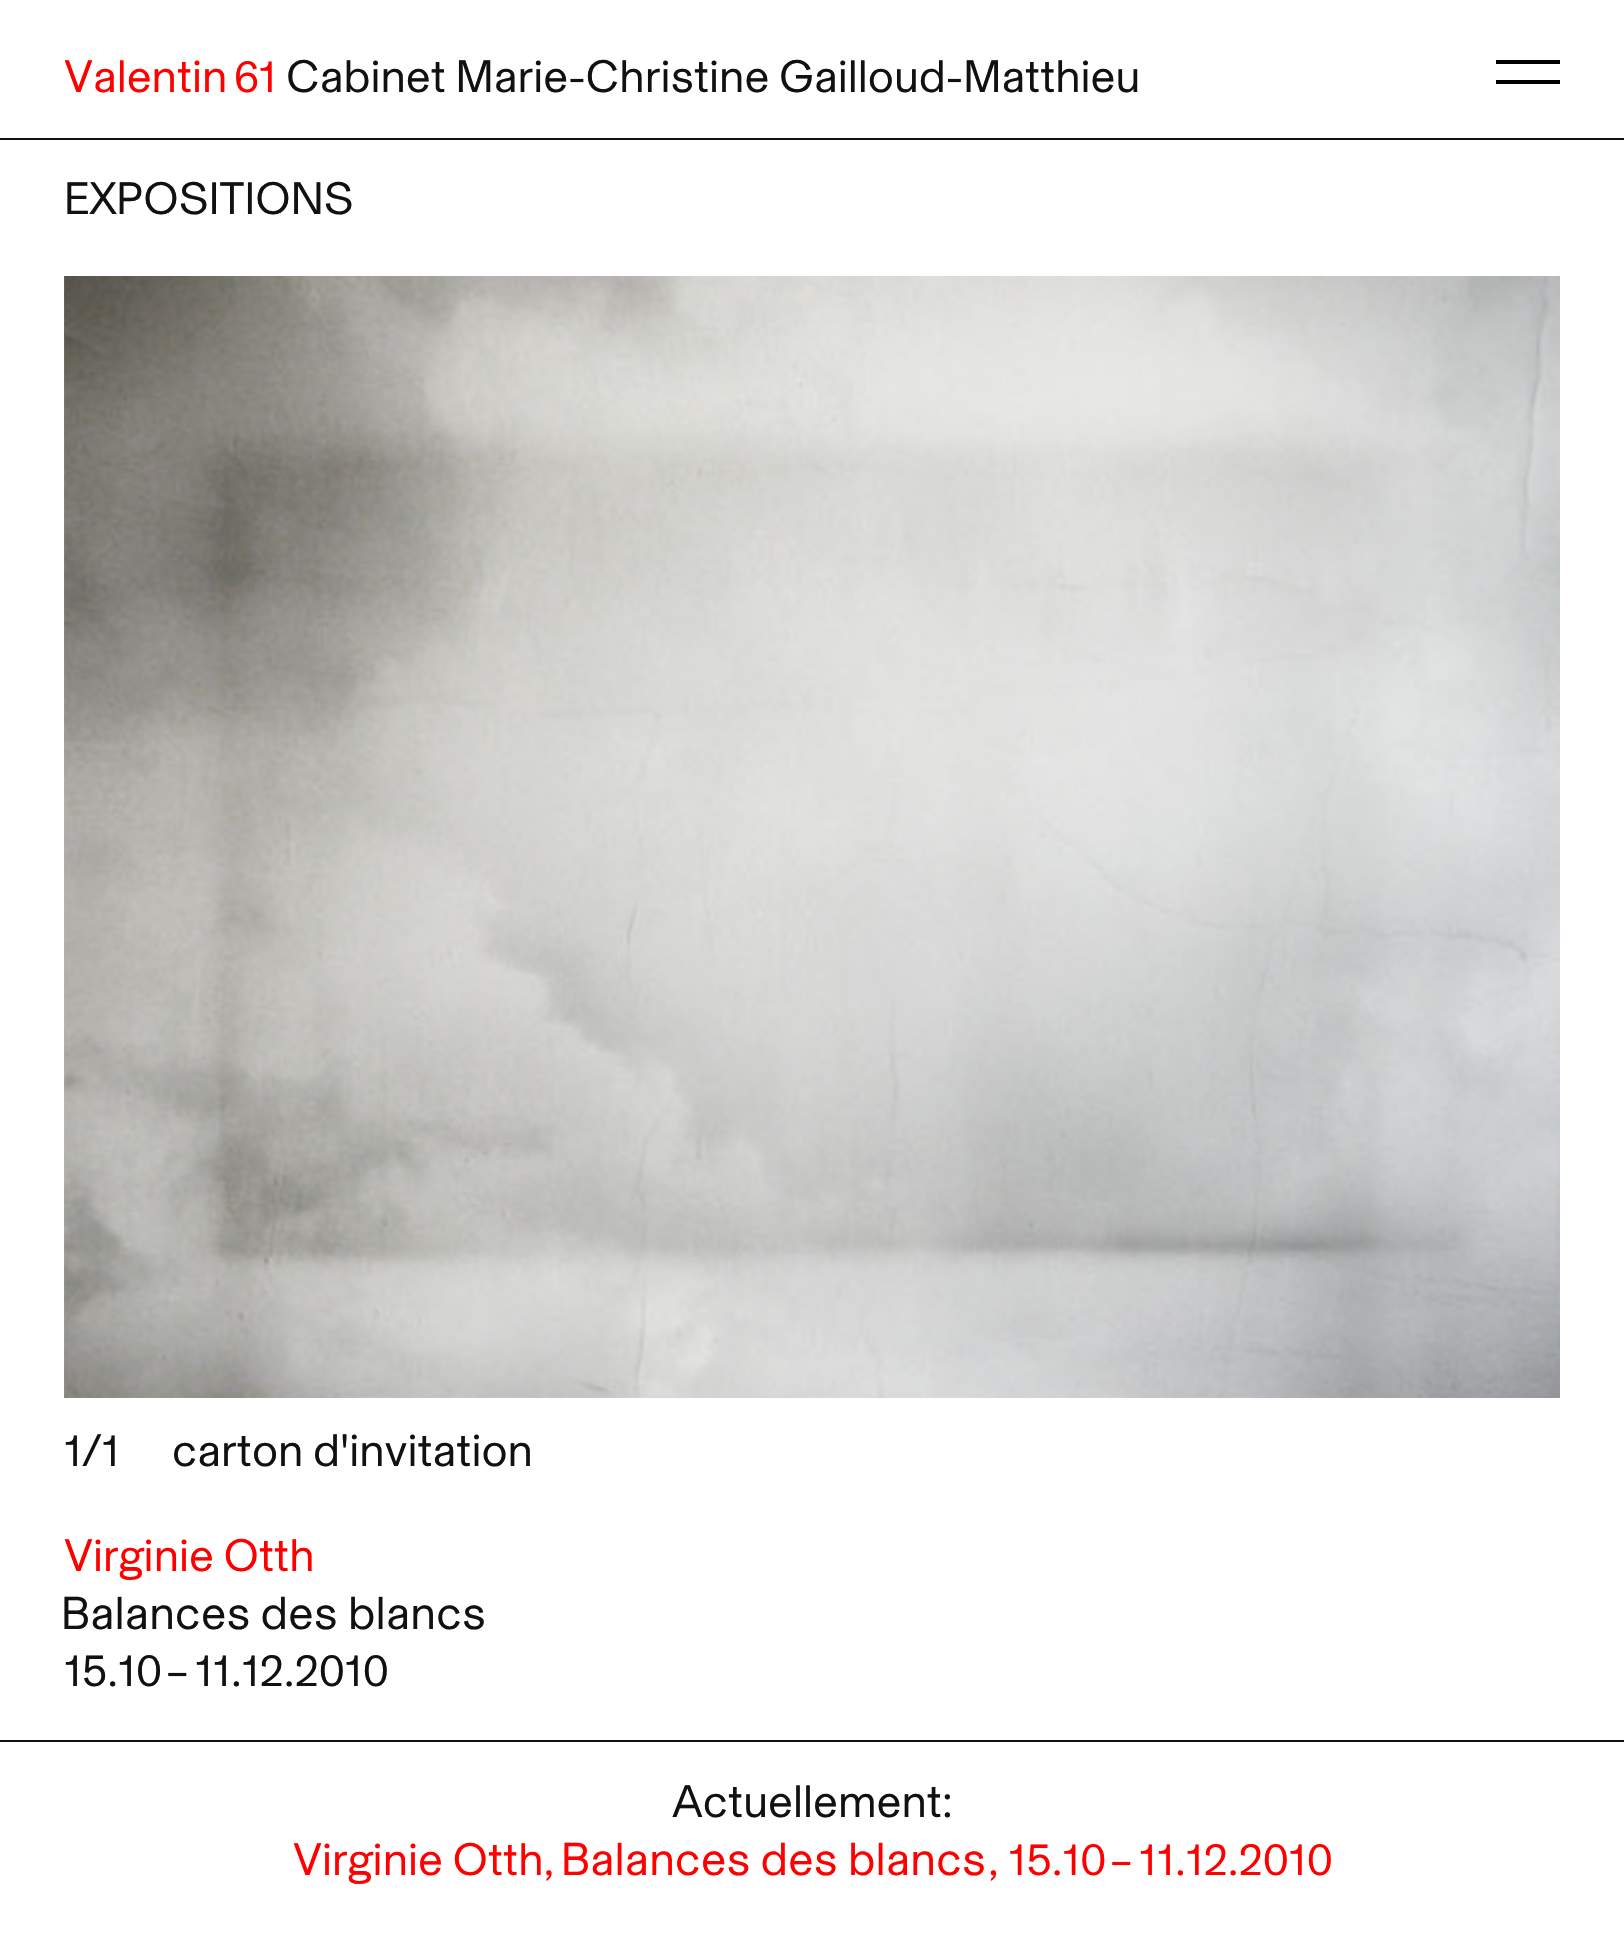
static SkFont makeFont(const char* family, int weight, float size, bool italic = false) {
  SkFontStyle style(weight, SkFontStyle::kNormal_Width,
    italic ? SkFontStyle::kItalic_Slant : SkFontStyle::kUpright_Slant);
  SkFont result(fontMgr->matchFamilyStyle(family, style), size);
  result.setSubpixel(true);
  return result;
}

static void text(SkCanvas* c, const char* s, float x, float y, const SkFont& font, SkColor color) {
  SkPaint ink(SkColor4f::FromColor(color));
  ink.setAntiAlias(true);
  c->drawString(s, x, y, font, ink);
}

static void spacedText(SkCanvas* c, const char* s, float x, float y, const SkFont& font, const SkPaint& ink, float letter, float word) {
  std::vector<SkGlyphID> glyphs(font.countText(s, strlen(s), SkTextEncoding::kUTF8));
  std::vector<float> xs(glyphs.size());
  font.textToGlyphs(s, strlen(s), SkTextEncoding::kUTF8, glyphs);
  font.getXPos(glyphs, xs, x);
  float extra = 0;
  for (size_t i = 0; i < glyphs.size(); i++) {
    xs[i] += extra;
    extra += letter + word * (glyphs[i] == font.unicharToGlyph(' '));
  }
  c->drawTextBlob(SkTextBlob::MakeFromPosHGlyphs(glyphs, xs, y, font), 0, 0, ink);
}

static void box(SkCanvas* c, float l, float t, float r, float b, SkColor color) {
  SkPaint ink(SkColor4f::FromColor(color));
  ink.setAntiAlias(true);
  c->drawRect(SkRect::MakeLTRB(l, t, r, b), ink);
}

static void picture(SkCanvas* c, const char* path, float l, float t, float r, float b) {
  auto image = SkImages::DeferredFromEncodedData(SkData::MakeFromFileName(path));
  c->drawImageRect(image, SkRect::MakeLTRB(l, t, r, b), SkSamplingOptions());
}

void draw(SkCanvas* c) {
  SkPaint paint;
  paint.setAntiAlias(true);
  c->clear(0xffffffff);
  box(c, 0, 138, 1624, 140, 0xff111111);
  SkFont face1 = makeFont("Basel", 400, 46);
  paint.setColor(0xffff0000);
  spacedText(c, "Valentin 61", 64, 92, face1, paint, 0, -3);
  text(c, "Cabinet Marie-Christine Gailloud-Matthieu", 286, 92, face1, 0xff111111);
  box(c, 1496, 60, 1560, 64, 0xff000000);
  box(c, 1496, 80, 1560, 84, 0xff000000);
  text(c, "EXPOSITIONS", 64, 214, face1, 0xff111111);
  picture(c, "img_01.png", 64, 276, 1560, 1398);
  text(c, "1/1", 64, 1466, face1, 0xff111111);
  text(c, "carton d'invitation", 172, 1466, face1, 0xff111111);
  text(c, "Virginie Otth", 64, 1571, face1, 0xffff0000);
  SkFont face2 = makeFont("Basel", 400, 46.75f);
  paint.setColor(0xff111111);
  spacedText(c, "Balances des blancs", 61, 1629, face2, paint, 0.2f, 0);
  text(c, "15.10", 64, 1686, face1, 0xff111111);
  text(c, "–", 166, 1686, face1, 0xff111111);
  text(c, "11.12.2010", 195, 1686, face1, 0xff111111);
  box(c, 0, 1740, 1624, 1742, 0xff111111);
  text(c, "Actuellement:", 672, 1817, face1, 0xff111111);
  text(c, "Virginie Otth,", 293, 1875, face1, 0xffff0000);
  paint.setColor(0xffff0000);
  spacedText(c, "Balances des blancs", 561, 1875, face2, paint, 0.2f, 0);
  text(c, ", 15.10", 988, 1875, face1, 0xffff0000);
  text(c, "–", 1110, 1875, face1, 0xffff0000);
  text(c, "11.12.2010", 1139, 1875, face1, 0xffff0000);
}
